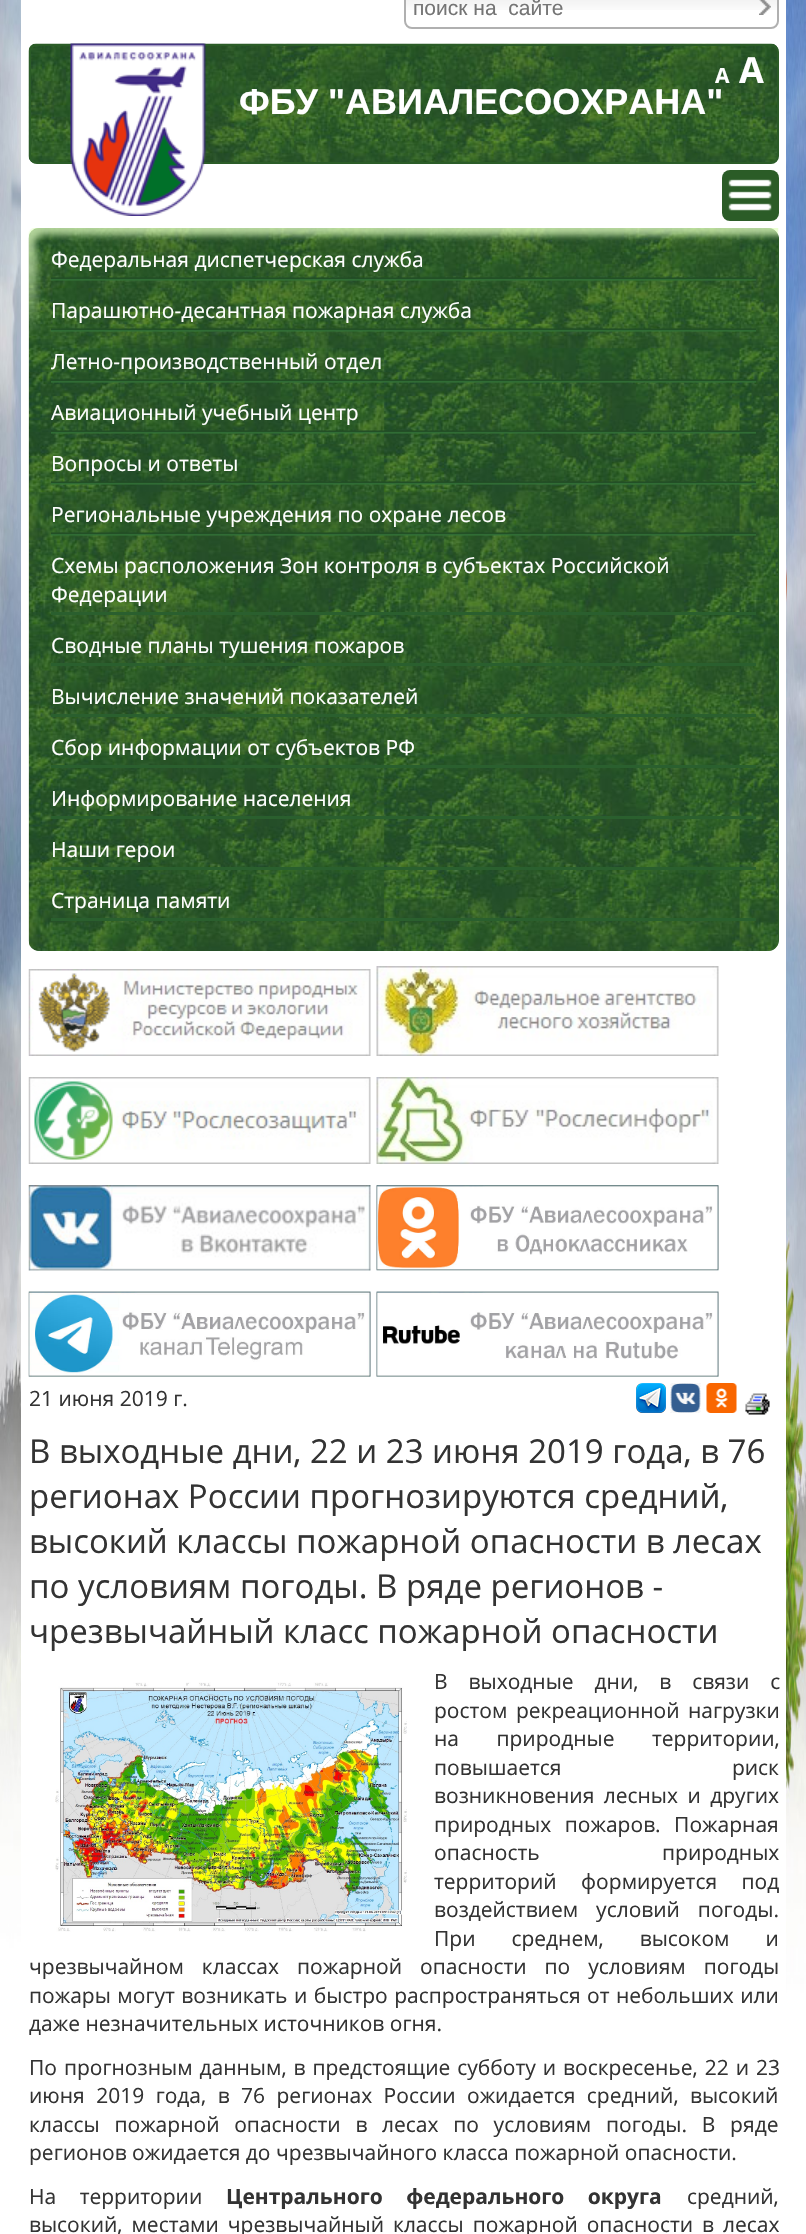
static SkFont makeFont(const char* family, int weight, float size, bool italic = false) {
  SkFontStyle style(weight, SkFontStyle::kNormal_Width,
    italic ? SkFontStyle::kItalic_Slant : SkFontStyle::kUpright_Slant);
  SkFont result(fontMgr->matchFamilyStyle(family, style), size);
  result.setSubpixel(true);
  return result;
}

static void text(SkCanvas* c, const char* s, float x, float y, const SkFont& font, SkColor color) {
  SkPaint ink(SkColor4f::FromColor(color));
  ink.setAntiAlias(true);
  c->drawString(s, x, y, font, ink);
}

static void spacedText(SkCanvas* c, const char* s, float x, float y, const SkFont& font, const SkPaint& ink, float letter, float word) {
  std::vector<SkGlyphID> glyphs(font.countText(s, strlen(s), SkTextEncoding::kUTF8));
  std::vector<float> xs(glyphs.size());
  font.textToGlyphs(s, strlen(s), SkTextEncoding::kUTF8, glyphs);
  font.getXPos(glyphs, xs, x);
  float extra = 0;
  for (size_t i = 0; i < glyphs.size(); i++) {
    xs[i] += extra;
    extra += letter + word * (glyphs[i] == font.unicharToGlyph(' '));
  }
  c->drawTextBlob(SkTextBlob::MakeFromPosHGlyphs(glyphs, xs, y, font), 0, 0, ink);
}

static void box(SkCanvas* c, float l, float t, float r, float b, SkColor color) {
  SkPaint ink(SkColor4f::FromColor(color));
  ink.setAntiAlias(true);
  c->drawRect(SkRect::MakeLTRB(l, t, r, b), ink);
}

static void roundBox(SkCanvas* c, float l, float t, float r, float b, float radius, SkColor color) {
  SkPaint ink(SkColor4f::FromColor(color));
  ink.setAntiAlias(true);
  c->drawRoundRect(SkRect::MakeLTRB(l, t, r, b), radius, radius, ink);
}

static void picture(SkCanvas* c, const char* path, float l, float t, float r, float b) {
  auto image = SkImages::DeferredFromEncodedData(SkData::MakeFromFileName(path));
  c->drawImageRect(image, SkRect::MakeLTRB(l, t, r, b), SkSamplingOptions());
}

void draw(SkCanvas* c) {
  SkPaint paint;
  paint.setAntiAlias(true);
  c->clear(0xffffffff);
  picture(c, "img_01.png", 0, 0, 806, 2043);
  box(c, 21, 0, 786, 2043, 0xffffffff);
  picture(c, "img_02.png", 406, 0, 777, 10);
  paint.setStyle(SkPaint::kStroke_Style);
  paint.setStrokeWidth(2);
  paint.setColor(0xffb0b0b0);
  c->drawRoundRect(SkRect::MakeLTRB(405, -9, 778, 28), 7, 7, paint);
  SkFont face1 = makeFont("Liberation Sans", 400, 21);
  text(c, "поиск на  сайте", 413, 15, face1, 0xff757575);
  picture(c, "img_03.png", 759, 0, 771, 15);
  picture(c, "img_04.png", 28, 43, 779, 164);
  paint.setColor(0xff2b5c27);
  c->drawRoundRect(SkRect::MakeLTRB(30, 45, 778, 163), 7, 7, paint);
  picture(c, "img_05.png", 70, 43, 206, 216);
  SkFont face2 = makeFont("Open Sans", 700, 21);
  text(c, "A", 715, 83, face2, 0xffffffff);
  SkFont face3 = makeFont("Open Sans", 700, 36);
  text(c, "A", 739, 83, face3, 0xffffffff);
  SkFont face4 = makeFont("Liberation Sans", 700, 36);
  text(c, "ФБУ \"АВИАЛЕСООХРАНА\"", 239, 114, face4, 0xffffffff);
  roundBox(c, 722, 170, 779, 221, 8, 0xff2b5c27);
  picture(c, "img_06.png", 728, 179, 772, 211);
  roundBox(c, 29, 228, 779, 951, 11, 0xff2b5c27);
  picture(c, "img_07.png", 28, 228, 779, 951);
  picture(c, "img_08.png", 28, 228, 779, 333);
  picture(c, "img_09.png", 51, 277, 756, 281);
  SkFont face5 = makeFont("Open Sans", 400, 21);
  text(c, "Федеральная диспетчерская служба", 51, 267, face5, 0xffffffff);
  picture(c, "img_10.png", 51, 328, 756, 332);
  text(c, "Парашютно-десантная пожарная служба", 51, 318, face5, 0xffffffff);
  picture(c, "img_11.png", 51, 379, 756, 383);
  text(c, "Летно-производственный отдел", 51, 369, face5, 0xffffffff);
  picture(c, "img_12.png", 51, 430, 756, 434);
  text(c, "Авиационный учебный центр", 51, 420, face5, 0xffffffff);
  picture(c, "img_13.png", 51, 481, 756, 485);
  text(c, "Вопросы и ответы", 51, 471, face5, 0xffffffff);
  picture(c, "img_14.png", 51, 532, 756, 536);
  text(c, "Региональные учреждения по охране лесов", 51, 522, face5, 0xffffffff);
  box(c, 51, 612, 756, 615, 0xff2a5f2e);
  text(c, "Схемы расположения Зон контроля в субъектах Российской", 51, 573, face5, 0xffffffff);
  text(c, "Федерации", 51, 602, face5, 0xffffffff);
  box(c, 51, 663, 756, 666, 0xff2a5f2e);
  text(c, "Сводные планы тушения пожаров", 51, 653, face5, 0xffffffff);
  box(c, 51, 714, 756, 717, 0xff2a5f2e);
  text(c, "Вычисление значений показателей", 51, 704, face5, 0xffffffff);
  box(c, 51, 765, 756, 768, 0xff2a5f2e);
  text(c, "Сбор информации от субъектов РФ", 51, 755, face5, 0xffffffff);
  box(c, 51, 816, 756, 819, 0xff2a5f2e);
  text(c, "Информирование населения", 51, 806, face5, 0xffffffff);
  box(c, 51, 867, 756, 870, 0xff2a5f2e);
  text(c, "Наши герои", 51, 857, face5, 0xffffffff);
  box(c, 51, 918, 756, 921, 0xff2a5f2e);
  text(c, "Страница памяти", 51, 908, face5, 0xffffffff);
  picture(c, "img_15.png", 28, 969, 371, 1056);
  picture(c, "img_16.png", 376, 966, 719, 1056);
  picture(c, "img_17.png", 28, 1077, 371, 1164);
  picture(c, "img_18.png", 376, 1077, 719, 1164);
  picture(c, "img_19.png", 28, 1185, 371, 1271);
  picture(c, "img_20.png", 376, 1185, 719, 1271);
  picture(c, "img_21.png", 28, 1291, 371, 1377);
  picture(c, "img_22.png", 376, 1291, 719, 1377);
  text(c, "21 июня 2019 г.", 29, 1406, face5, 0xff333333);
  picture(c, "img_23.png", 636, 1383, 666, 1413);
  picture(c, "img_24.png", 670, 1383, 701, 1413);
  picture(c, "img_25.png", 706, 1383, 737, 1413);
  picture(c, "img_26.png", 745, 1393, 770, 1415);
  SkFont face6 = makeFont("Open Sans", 400, 33);
  text(c, "В выходные дни, 22 и 23 июня 2019 года, в 76", 29, 1463, face6, 0xff333333);
  text(c, "регионах России прогнозируются средний,", 29, 1508, face6, 0xff333333);
  text(c, "высокий классы пожарной опасности в лесах", 29, 1553, face6, 0xff333333);
  text(c, "по условиям погоды. В ряде регионов -", 29, 1598, face6, 0xff333333);
  text(c, "чрезвычайный класс пожарной опасности", 29, 1643, face6, 0xff333333);
  picture(c, "img_27.png", 55, 1682, 407, 1932);
  paint.setStyle(SkPaint::kFill_Style);
  paint.setColor(0xff333333);
  spacedText(c, "В выходные дни, в связи с", 434, 1689, face5, paint, 0, 15.5f);
  spacedText(c, "ростом рекреационной нагрузки", 434, 1718, face5, paint, 0, 3);
  spacedText(c, "на природные территории,", 434, 1746, face5, paint, 0, 32);
  spacedText(c, "повышается риск", 434, 1775, face5, paint, 0, 165);
  spacedText(c, "возникновения лесных и других", 434, 1803, face5, paint, 0, 4);
  spacedText(c, "природных пожаров. Пожарная", 434, 1832, face5, paint, 0, 8);
  spacedText(c, "опасность природных", 434, 1860, face5, paint, 0, 117);
  spacedText(c, "территорий формируется под", 434, 1889, face5, paint, 0, 19);
  spacedText(c, "воздействием условий погоды.", 434, 1917, face5, paint, 0, 12.5f);
  spacedText(c, "При среднем, высоком и", 434, 1946, face5, paint, 0, 30.5f);
  spacedText(c, "чрезвычайном классах пожарной опасности по условиям погоды", 29, 1974, face5, paint, 0, 12.5f);
  spacedText(c, "пожары могут возникать и быстро распространяться от небольших или", 29, 2003, face5, paint, 0, 1);
  c->save();
  c->clipRect(SkRect::MakeLTRB(29, 1383, 779, 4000));
  text(c, "даже незначительных источников огня.", 29, 2031, face5, 0xff333333);
  c->restore();
  spacedText(c, "По прогнозным данным, в предстоящие субботу и воскресенье, 22 и 23", 29, 2075, face5, paint, 0, 1.5f);
  spacedText(c, "июня 2019 года, в 76 регионах России ожидается средний, высокий", 29, 2103, face5, paint, 0, 6);
  spacedText(c, "классы пожарной опасности в лесах по условиям погоды. В ряде", 29, 2132, face5, paint, 0, 9.25f);
  text(c, "регионов ожидается до чрезвычайного класса пожарной опасности.", 29, 2160, face5, 0xff333333);
  spacedText(c, "На территории", 29, 2204, face5, paint, 0, 18);
  spacedText(c, "Центрального федерального округа", 226, 2204, face2, paint, 0, 18);
  text(c, "средний,", 687, 2204, face5, 0xff333333);
  spacedText(c, "высокий, местами чрезвычайный классы пожарной опасности в лесах", 29, 2232, face5, paint, 0, 3.5f);
}
